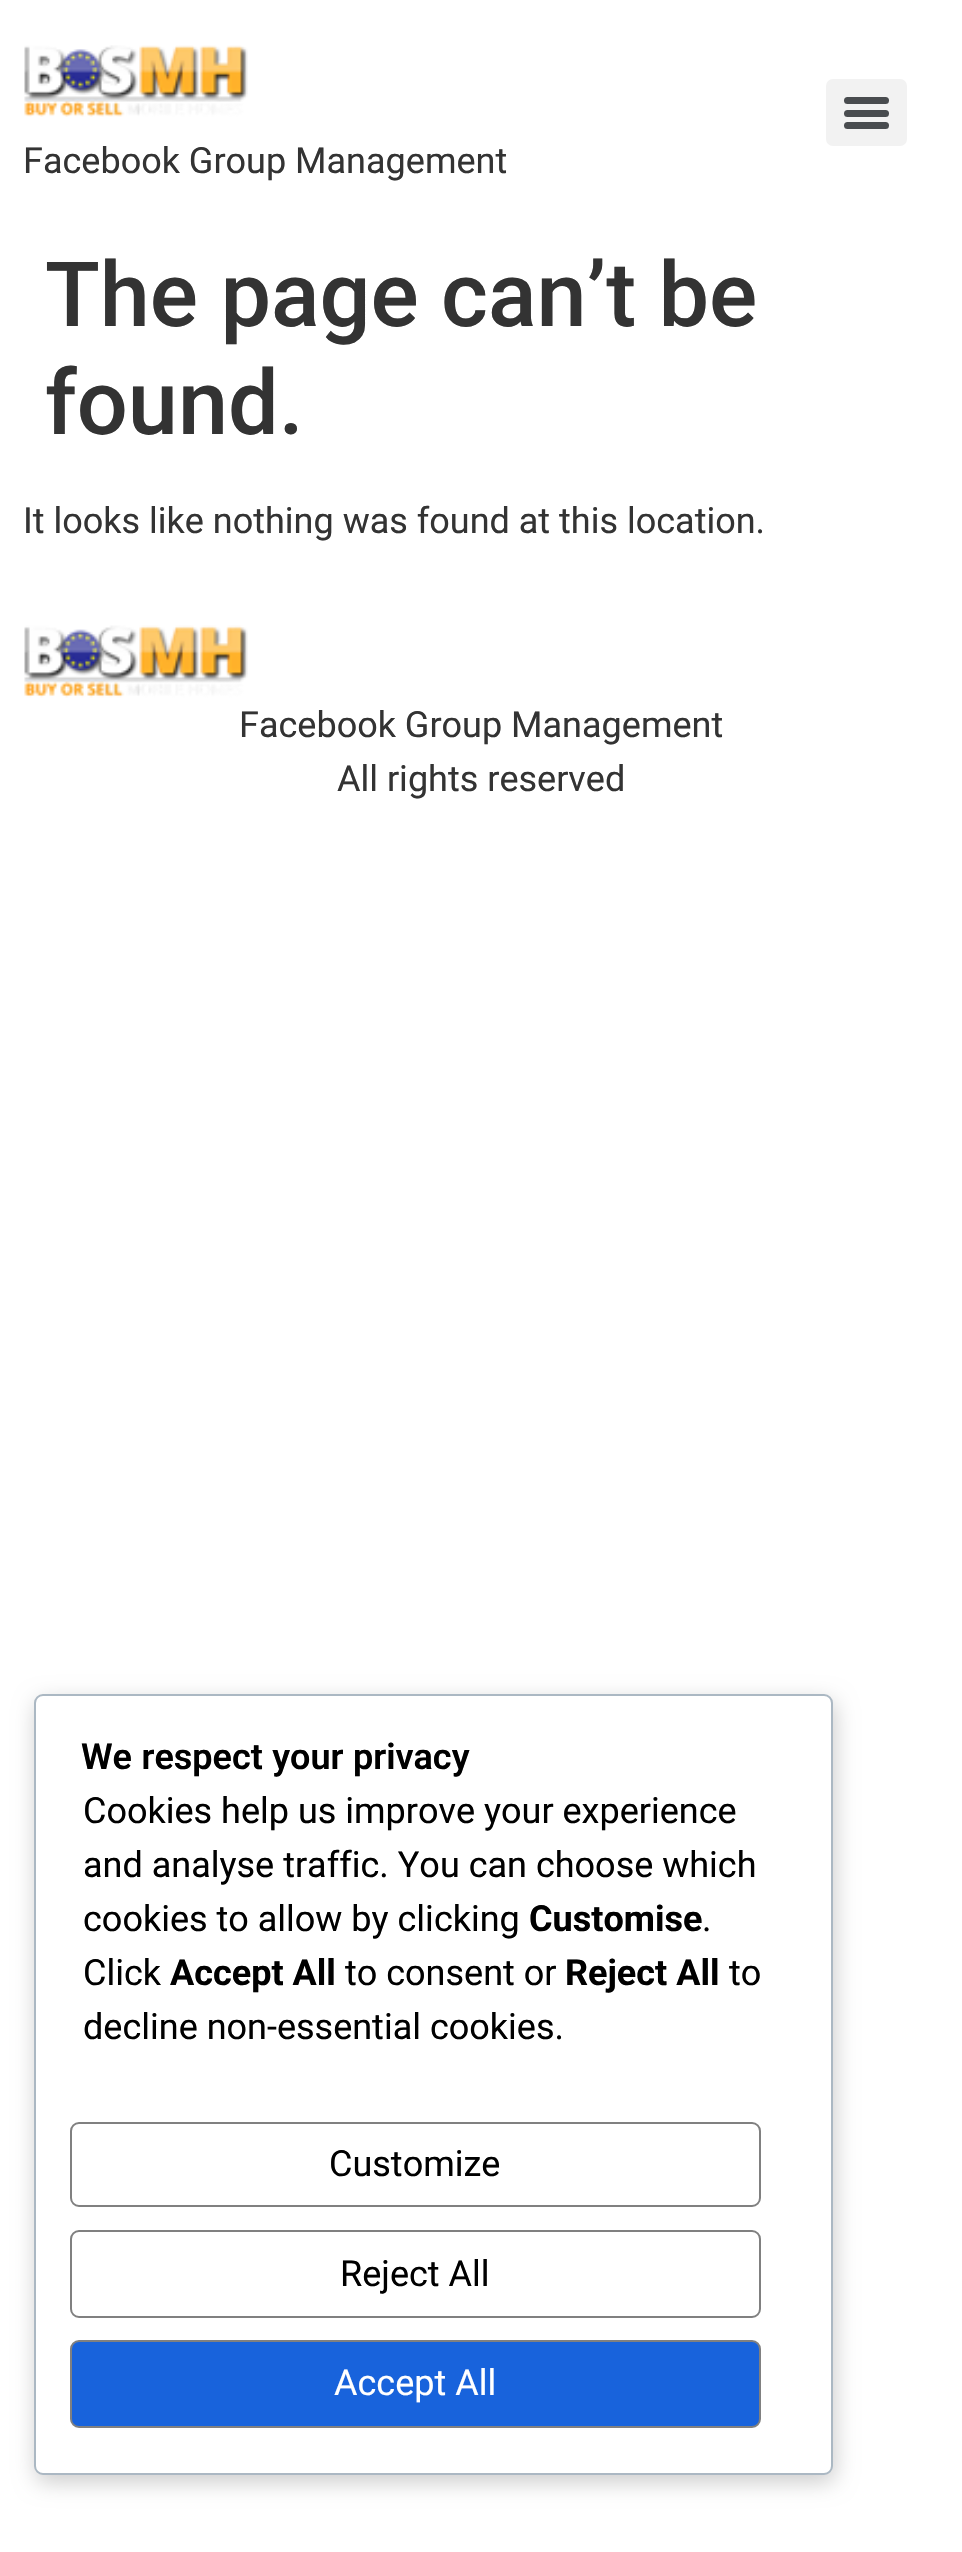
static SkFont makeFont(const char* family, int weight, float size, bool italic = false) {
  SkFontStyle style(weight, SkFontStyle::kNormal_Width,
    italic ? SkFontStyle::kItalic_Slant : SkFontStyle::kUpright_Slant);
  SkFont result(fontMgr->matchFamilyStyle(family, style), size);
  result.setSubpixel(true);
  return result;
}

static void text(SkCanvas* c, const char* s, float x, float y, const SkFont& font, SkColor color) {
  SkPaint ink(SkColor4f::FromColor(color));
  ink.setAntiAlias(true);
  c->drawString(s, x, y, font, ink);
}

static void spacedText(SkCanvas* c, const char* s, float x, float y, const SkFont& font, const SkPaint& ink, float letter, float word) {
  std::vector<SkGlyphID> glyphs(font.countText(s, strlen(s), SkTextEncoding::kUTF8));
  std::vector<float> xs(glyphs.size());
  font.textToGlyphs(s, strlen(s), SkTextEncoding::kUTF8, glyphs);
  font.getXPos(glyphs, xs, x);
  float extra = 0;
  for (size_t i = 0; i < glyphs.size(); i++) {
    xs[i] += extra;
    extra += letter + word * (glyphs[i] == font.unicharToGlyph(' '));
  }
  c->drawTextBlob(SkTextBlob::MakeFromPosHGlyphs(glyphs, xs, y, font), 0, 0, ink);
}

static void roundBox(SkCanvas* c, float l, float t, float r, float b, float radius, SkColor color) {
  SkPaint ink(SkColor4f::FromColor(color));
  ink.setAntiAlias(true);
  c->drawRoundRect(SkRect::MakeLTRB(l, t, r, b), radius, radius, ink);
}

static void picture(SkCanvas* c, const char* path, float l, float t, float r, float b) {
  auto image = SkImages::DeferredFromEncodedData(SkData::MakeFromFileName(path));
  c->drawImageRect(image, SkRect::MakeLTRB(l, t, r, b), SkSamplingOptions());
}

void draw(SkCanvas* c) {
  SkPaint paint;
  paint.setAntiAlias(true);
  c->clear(0xffffffff);
  roundBox(c, 826, 79, 907, 146, 7, 0xfff2f2f2);
  roundBox(c, 844, 110, 889, 117, 3.5f, 0xff494c4f);
  roundBox(c, 844, 97, 889, 104, 3.5f, 0xff494c4f);
  roundBox(c, 844, 122, 889, 129, 3.5f, 0xff494c4f);
  picture(c, "img_01.png", 24, 45, 248, 117);
  SkFont face1 = makeFont("Roboto", 400, 36);
  text(c, "Facebook Group Management", 23, 173, face1, 0xff333333);
  SkFont face2 = makeFont("Roboto", 500, 90);
  text(c, "The page can’t be", 45, 326, face2, 0xff333333);
  text(c, "found.", 45, 434, face2, 0xff333333);
  text(c, "It looks like nothing was found at this location.", 23, 533, face1, 0xff333333);
  picture(c, "img_02.png", 24, 625, 248, 698);
  text(c, "Facebook Group Management", 239, 737, face1, 0xff333333);
  text(c, "All rights reserved", 337, 791, face1, 0xff333333);
  paint.setColor(0x33000000);
  paint.setMaskFilter(SkMaskFilter::MakeBlur(kNormal_SkBlurStyle, 11));
  c->drawRoundRect(SkRect::MakeLTRB(36, 1701, 835, 2482), 9, 9, paint);
  paint.setMaskFilter(nullptr);
  paint.setColor(0xffffffff);
  c->drawRoundRect(SkRect::MakeLTRB(35, 1695, 832, 2474), 8, 8, paint);
  paint.setStyle(SkPaint::kStroke_Style);
  paint.setStrokeWidth(2);
  paint.setColor(0xffabb8c3);
  c->drawRoundRect(SkRect::MakeLTRB(35, 1695, 832, 2474), 8, 8, paint);
  SkFont face3 = makeFont("Roboto", 600, 36);
  paint.setStyle(SkPaint::kFill_Style);
  paint.setColor(0xff000000);
  spacedText(c, "We respect your privacy", 81, 1769, face3, paint, 0, 0.5f);
  text(c, "Cookies help us improve your experience", 83, 1823, face1, 0xff000000);
  text(c, "and analyse traffic. You can choose which", 83, 1877, face1, 0xff000000);
  text(c, "cookies to allow by clicking", 83, 1931, face1, 0xff000000);
  SkFont face4 = makeFont("Roboto", 700, 36);
  text(c, "Customise", 529, 1931, face4, 0xff000000);
  text(c, ".", 702, 1931, face1, 0xff000000);
  text(c, "Click", 83, 1985, face1, 0xff000000);
  text(c, "Accept All", 170, 1985, face4, 0xff000000);
  text(c, "to consent or", 345, 1985, face1, 0xff000000);
  text(c, "Reject All", 565, 1985, face4, 0xff000000);
  text(c, "to", 729, 1985, face1, 0xff000000);
  text(c, "decline non-essential cookies.", 83, 2039, face1, 0xff000000);
  paint.setStyle(SkPaint::kStroke_Style);
  paint.setColor(0xff808080);
  c->drawRoundRect(SkRect::MakeLTRB(71, 2123, 760, 2206), 8, 8, paint);
  text(c, "Customize", 329, 2176, face1, 0xff000000);
  c->drawRoundRect(SkRect::MakeLTRB(71, 2231, 760, 2317), 8, 8, paint);
  text(c, "Reject All", 340, 2286, face1, 0xff000000);
  paint.setStyle(SkPaint::kFill_Style);
  paint.setColor(0xff1863dc);
  c->drawRoundRect(SkRect::MakeLTRB(71, 2341, 760, 2427), 8, 8, paint);
  paint.setStyle(SkPaint::kStroke_Style);
  paint.setColor(0xff808080);
  c->drawRoundRect(SkRect::MakeLTRB(71, 2341, 760, 2427), 8, 8, paint);
  text(c, "Accept All", 334, 2395, face1, 0xffffffff);
}
